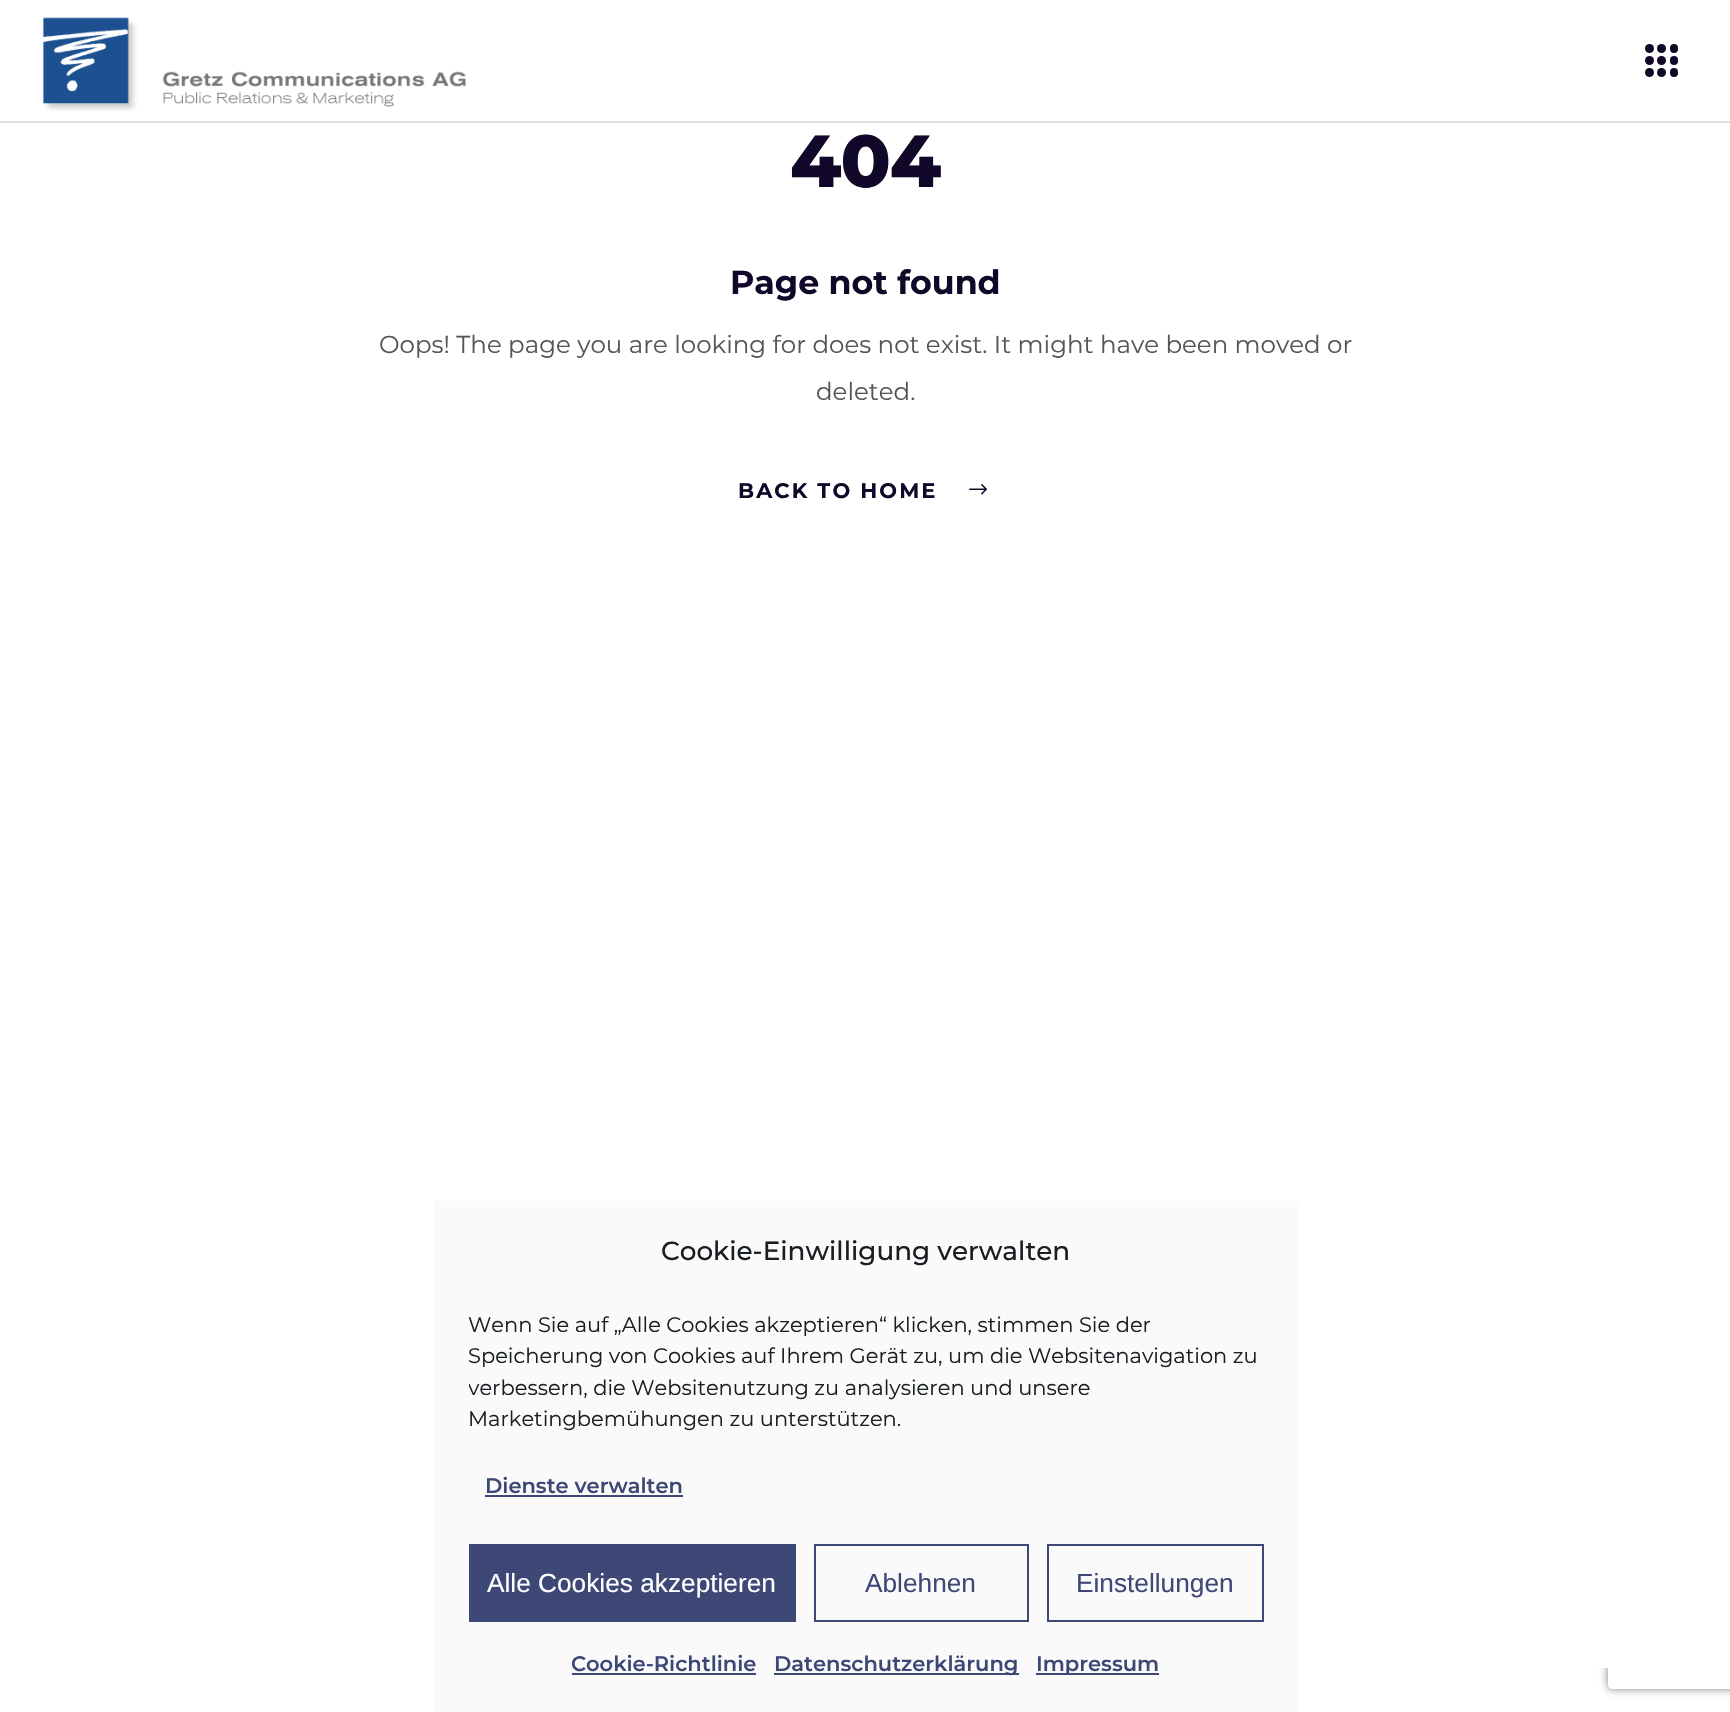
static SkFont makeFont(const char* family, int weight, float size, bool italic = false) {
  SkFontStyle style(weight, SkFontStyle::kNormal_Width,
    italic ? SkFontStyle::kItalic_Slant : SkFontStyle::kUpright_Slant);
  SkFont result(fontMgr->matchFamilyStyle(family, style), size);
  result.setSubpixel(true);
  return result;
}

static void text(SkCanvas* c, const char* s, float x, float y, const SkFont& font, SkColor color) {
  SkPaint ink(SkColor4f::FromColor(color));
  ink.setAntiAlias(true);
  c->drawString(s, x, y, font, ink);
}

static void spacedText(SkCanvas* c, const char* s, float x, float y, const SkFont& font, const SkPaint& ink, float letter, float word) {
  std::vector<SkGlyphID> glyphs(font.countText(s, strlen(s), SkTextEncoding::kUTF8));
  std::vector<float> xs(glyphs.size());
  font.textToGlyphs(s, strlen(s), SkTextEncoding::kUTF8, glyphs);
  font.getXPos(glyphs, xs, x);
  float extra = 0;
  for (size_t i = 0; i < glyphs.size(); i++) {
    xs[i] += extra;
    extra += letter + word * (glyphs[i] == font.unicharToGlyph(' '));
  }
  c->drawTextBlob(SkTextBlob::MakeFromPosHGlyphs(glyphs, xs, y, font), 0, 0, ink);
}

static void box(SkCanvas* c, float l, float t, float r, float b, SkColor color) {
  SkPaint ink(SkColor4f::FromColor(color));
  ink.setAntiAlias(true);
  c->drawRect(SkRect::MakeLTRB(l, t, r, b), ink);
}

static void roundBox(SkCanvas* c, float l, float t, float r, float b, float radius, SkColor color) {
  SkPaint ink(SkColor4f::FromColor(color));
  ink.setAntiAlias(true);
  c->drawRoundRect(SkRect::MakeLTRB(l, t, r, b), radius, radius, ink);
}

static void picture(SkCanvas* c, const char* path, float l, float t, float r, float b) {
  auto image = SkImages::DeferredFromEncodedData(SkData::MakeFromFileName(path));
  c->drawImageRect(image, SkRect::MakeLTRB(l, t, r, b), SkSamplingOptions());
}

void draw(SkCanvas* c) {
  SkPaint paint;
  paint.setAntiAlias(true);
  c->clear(0xffffffff);
  c->save();
  c->clipPath(SkPathBuilder(SkPathFillType::kEvenOdd).moveTo(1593, 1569).lineTo(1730, 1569).lineTo(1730, 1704).lineTo(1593, 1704).close().moveTo(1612, 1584).lineTo(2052, 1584).cubicTo(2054, 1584, 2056, 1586, 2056, 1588).lineTo(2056, 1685).cubicTo(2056, 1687, 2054, 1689, 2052, 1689).lineTo(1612, 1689).cubicTo(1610, 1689, 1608, 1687, 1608, 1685).lineTo(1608, 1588).cubicTo(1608, 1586, 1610, 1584, 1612, 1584).close().detach(), true);
  paint.setColor(0xff808080);
  paint.setMaskFilter(SkMaskFilter::MakeBlur(kNormal_SkBlurStyle, 4.5f));
  c->drawRoundRect(SkRect::MakeLTRB(1608, 1584, 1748, 1689), 4, 4, paint);
  paint.setMaskFilter(nullptr);
  c->restore();
  box(c, 1599, 1575, 1730, 1668, 0xffffffff);
  box(c, 0, 121, 1730, 123, 0xffe1e1e1);
  picture(c, "img_01.png", 42, 17, 466, 111);
  paint.setColor(0xff110729);
  c->drawCircle(1649.5f, 48.5f, 4.5f, paint);
  c->drawCircle(1661.5f, 48.5f, 4.5f, paint);
  roundBox(c, 1670, 44, 1678, 53, 4, 0xff110729);
  c->drawCircle(1649.5f, 60.5f, 4.5f, paint);
  c->drawCircle(1661.5f, 60.5f, 4.5f, paint);
  roundBox(c, 1670, 56, 1678, 65, 4, 0xff110729);
  c->drawCircle(1649.5f, 72.5f, 4.5f, paint);
  c->drawCircle(1661.5f, 72.5f, 4.5f, paint);
  roundBox(c, 1670, 68, 1678, 77, 4, 0xff110729);
  SkFont face1 = makeFont("Montserrat", 800, 73.5f);
  spacedText(c, "404", 790, 187, face1, paint, -1, 0);
  SkFont face2 = makeFont("Montserrat", 700, 33.25f);
  text(c, "Page not found", 730, 294, face2, 0xff110729);
  SkFont face3 = makeFont("Montserrat", 400, 24.5f);
  text(c, "Oops! The page you are looking for does not exist. It might have been moved or", 379, 353, face3, 0xff555555);
  text(c, "deleted.", 816, 400, face3, 0xff555555);
  SkFont face4 = makeFont("Montserrat", 700, 21);
  spacedText(c, "BACK TO HOME", 738, 498, face4, paint, 2.1f, 0);
  picture(c, "img_02.png", 969, 484, 987, 495);
  box(c, 434, 1201, 1299, 1712, 0xfffafafa);
  SkFont face5 = makeFont("Montserrat", 500, 26.25f);
  text(c, "Cookie-Einwilligung verwalten", 661, 1260, face5, 0xff191e23);
  SkFont face6 = makeFont("Montserrat", 400, 21);
  text(c, "Wenn Sie auf „Alle Cookies akzeptieren“ klicken, stimmen Sie der", 468, 1332, face6, 0xff191e23);
  text(c, "Speicherung von Cookies auf Ihrem Gerät zu, um die Websitenavigation zu", 468, 1363, face6, 0xff191e23);
  c->save();
  c->clipRect(SkRect::MakeLTRB(469, 1309, 1264, 1444));
  text(c, "verbessern, die Websitenutzung zu analysieren und unsere", 468, 1395, face6, 0xff191e23);
  c->restore();
  text(c, "Marketingbemühungen zu unterstützen.", 468, 1426, face6, 0xff191e23);
  SkFont face7 = makeFont("Montserrat", 600, 21);
  text(c, "Dienste verwalten", 485, 1493, face7, 0xff3d4876);
  box(c, 485, 1495, 683, 1497, 0xff3d4876);
  box(c, 469, 1544, 796, 1622, 0xff3d4876);
  SkFont face8 = makeFont("Liberation Sans", 400, 26.25f);
  text(c, "Alle Cookies akzeptieren", 487, 1592, face8, 0xffffffff);
  paint.setStyle(SkPaint::kStroke_Style);
  paint.setStrokeWidth(2);
  paint.setColor(0xff3d4876);
  c->drawRect(SkRect::MakeLTRB(815, 1545, 1028, 1621), paint);
  text(c, "Ablehnen", 865, 1592, face8, 0xff3d4876);
  c->drawRect(SkRect::MakeLTRB(1048, 1545, 1263, 1621), paint);
  text(c, "Einstellungen", 1076, 1592, face8, 0xff3d4876);
  text(c, "Cookie-Richtlinie", 571, 1671, face7, 0xff3d4876);
  box(c, 572, 1673, 756, 1675, 0xff3d4876);
  box(c, 774, 1673, 1019, 1675, 0xff3d4876);
  text(c, "Datenschutzerklärung", 774, 1671, face7, 0xff3d4876);
  box(c, 1036, 1673, 1159, 1675, 0xff3d4876);
  text(c, "Impressum", 1036, 1671, face7, 0xff3d4876);
}
